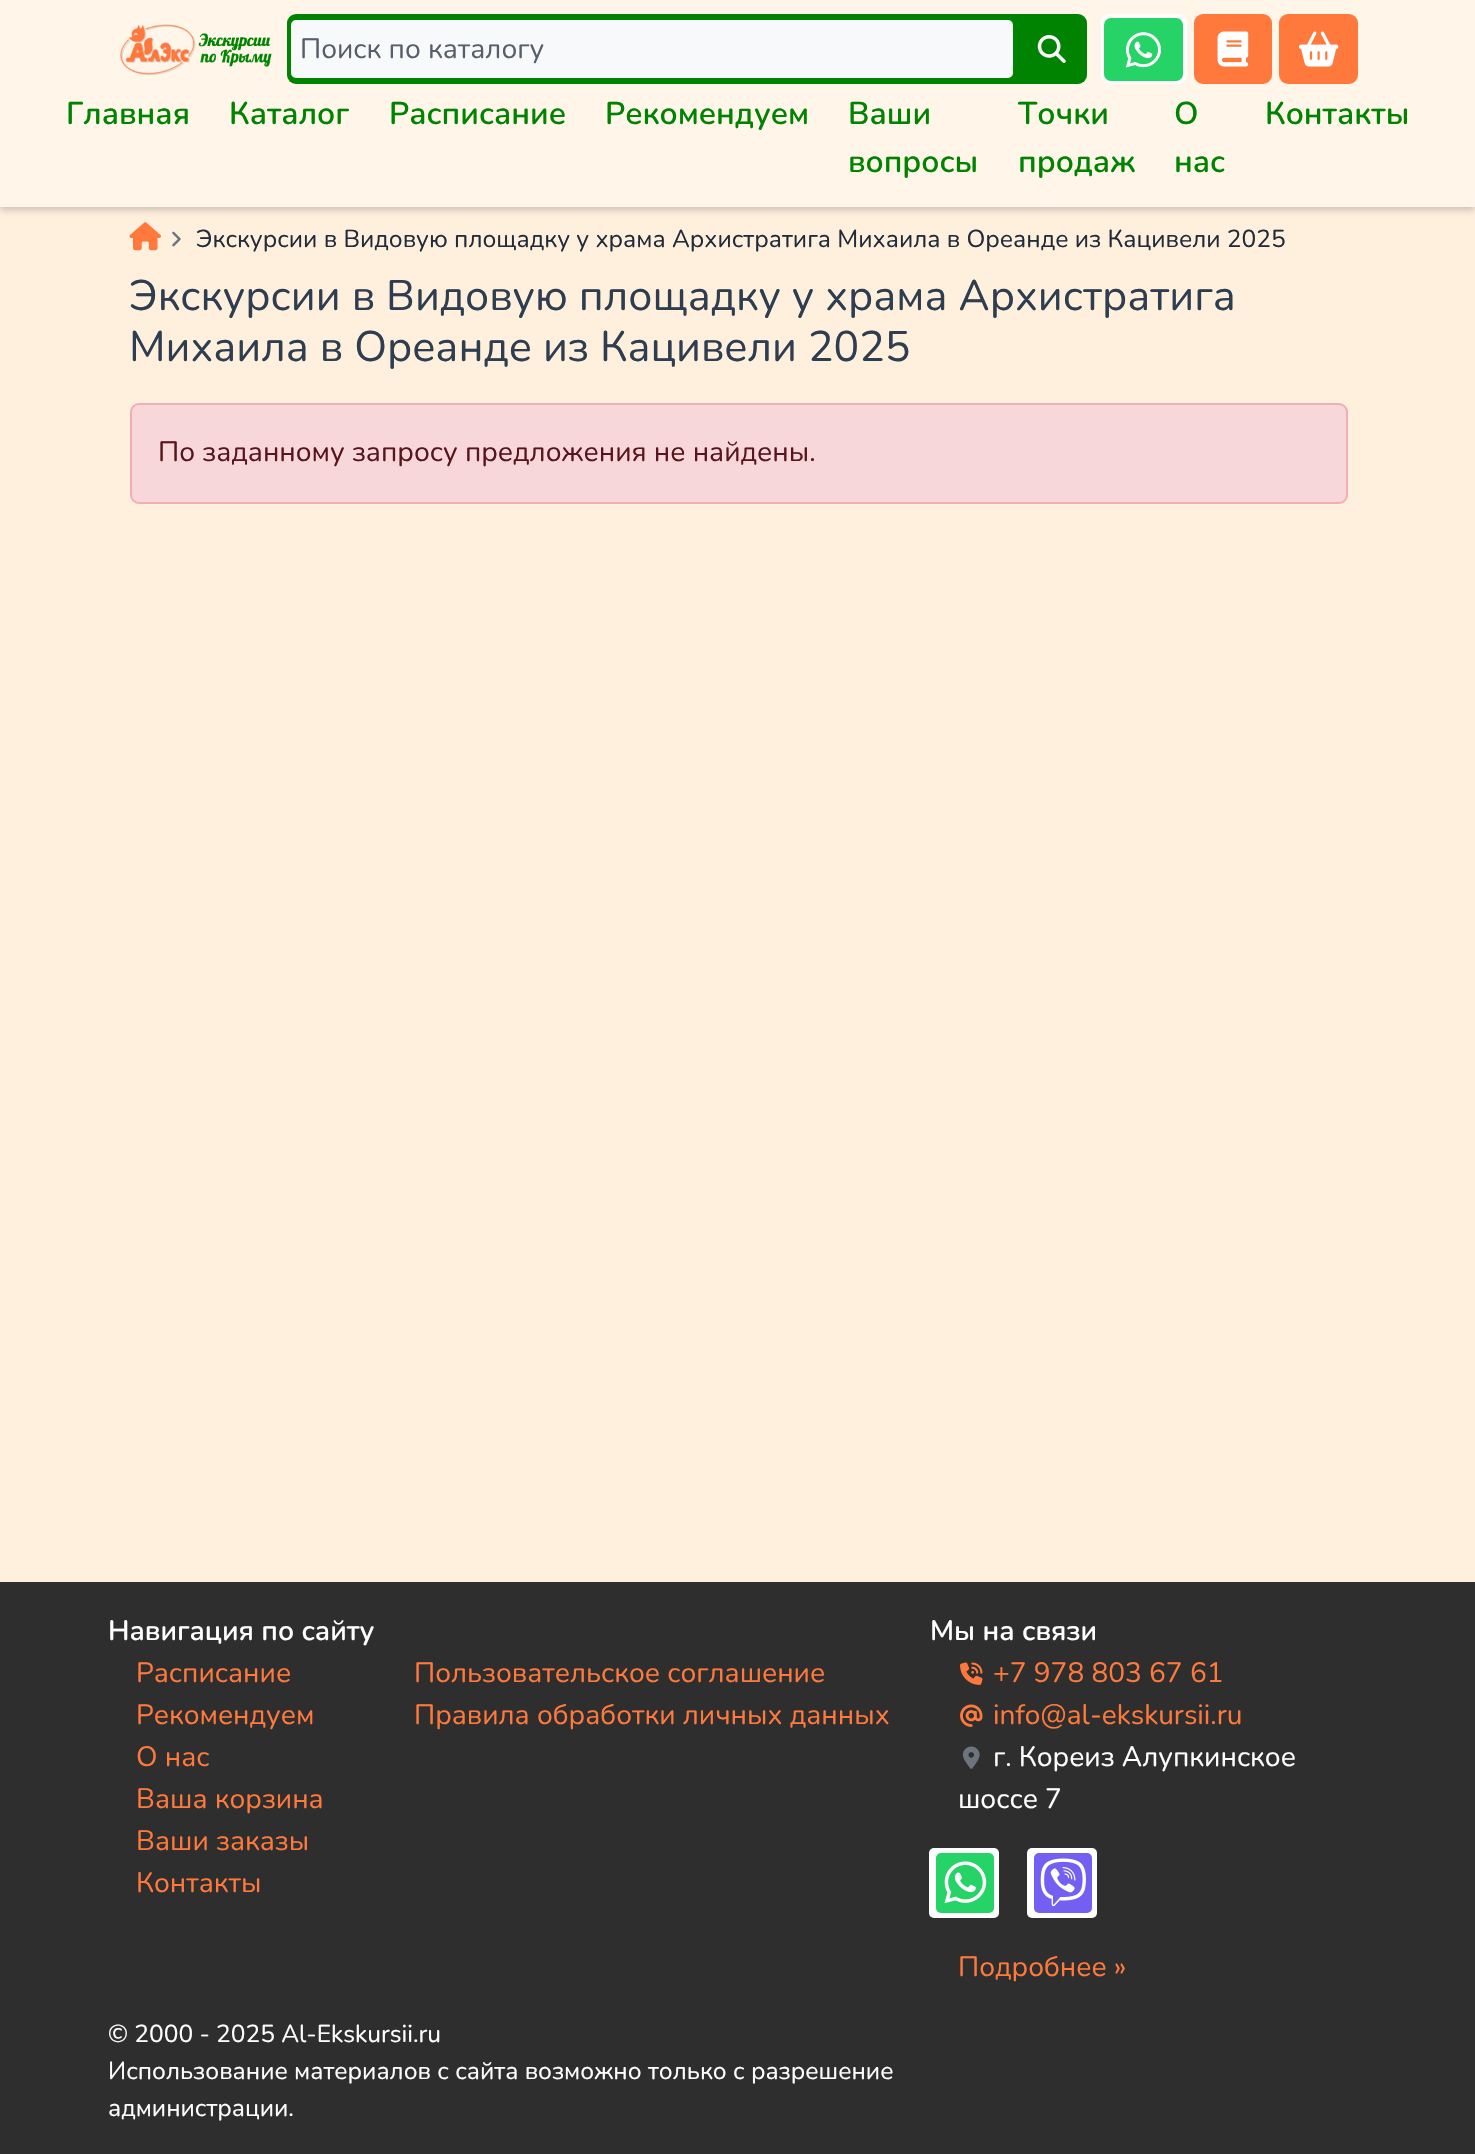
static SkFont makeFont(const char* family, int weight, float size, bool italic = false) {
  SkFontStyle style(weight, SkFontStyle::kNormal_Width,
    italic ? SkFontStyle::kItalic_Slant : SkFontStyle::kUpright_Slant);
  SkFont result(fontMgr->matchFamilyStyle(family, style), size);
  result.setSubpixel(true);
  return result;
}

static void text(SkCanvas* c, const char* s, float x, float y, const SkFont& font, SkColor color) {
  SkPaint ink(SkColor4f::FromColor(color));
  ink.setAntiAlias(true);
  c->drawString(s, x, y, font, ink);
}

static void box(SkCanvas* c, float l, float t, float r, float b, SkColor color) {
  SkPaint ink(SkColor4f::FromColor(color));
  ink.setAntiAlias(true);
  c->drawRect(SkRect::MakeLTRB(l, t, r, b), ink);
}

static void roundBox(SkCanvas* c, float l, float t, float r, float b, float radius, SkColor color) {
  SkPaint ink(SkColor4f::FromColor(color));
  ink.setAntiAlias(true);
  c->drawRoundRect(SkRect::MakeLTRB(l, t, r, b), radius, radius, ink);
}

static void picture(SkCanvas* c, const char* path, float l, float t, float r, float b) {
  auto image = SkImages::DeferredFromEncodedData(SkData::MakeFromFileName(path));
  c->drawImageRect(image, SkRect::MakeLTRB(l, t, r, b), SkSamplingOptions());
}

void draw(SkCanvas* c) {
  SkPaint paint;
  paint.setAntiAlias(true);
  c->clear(0xffffefdd);
  paint.setColor(0x33000000);
  paint.setMaskFilter(SkMaskFilter::MakeBlur(kNormal_SkBlurStyle, 3.5f));
  c->drawRect(SkRect::MakeLTRB(0, 4, 1475, 210), paint);
  paint.setMaskFilter(nullptr);
  box(c, 0, 0, 1475, 207, 0xfffff6e9);
  picture(c, "img_01.png", 119, 24, 272, 76);
  roundBox(c, 287, 14, 1087, 84, 9, 0xff008300);
  paint.setColor(0xfff8f9fa);
  c->drawRoundRect(SkRect::MakeLTRB(289, 18, 1015, 80), 7, 7, paint);
  paint.setStyle(SkPaint::kStroke_Style);
  paint.setStrokeWidth(4);
  paint.setColor(0xff008300);
  c->drawRoundRect(SkRect::MakeLTRB(289, 18, 1015, 80), 7, 7, paint);
  SkFont face1 = makeFont("Nunito", 400, 28);
  text(c, "Поиск по каталогу", 300, 58, face1, 0xff575f6a);
  picture(c, "img_02.png", 1037, 35, 1066, 63);
  roundBox(c, 1101, 14, 1187, 84, 9, 0xffffffff);
  roundBox(c, 1104, 18, 1183, 81, 7, 0xff25d366);
  picture(c, "img_03.png", 1125, 32, 1161, 68);
  roundBox(c, 1194, 14, 1272, 84, 9, 0xffff793d);
  picture(c, "img_04.png", 1217, 31, 1249, 67);
  roundBox(c, 1279, 14, 1358, 84, 9, 0xffff793d);
  picture(c, "img_05.png", 1299, 31, 1339, 67);
  SkFont face2 = makeFont("Nunito", 600, 31.5f);
  text(c, "Главная", 66, 124, face2, 0xff008300);
  text(c, "Каталог", 229, 124, face2, 0xff008300);
  text(c, "Расписание", 389, 124, face2, 0xff008300);
  text(c, "Рекомендуем", 605, 124, face2, 0xff008300);
  text(c, "Ваши", 848, 124, face2, 0xff008300);
  text(c, "вопросы", 848, 172, face2, 0xff008300);
  text(c, "Точки", 1018, 124, face2, 0xff008300);
  text(c, "продаж", 1018, 172, face2, 0xff008300);
  text(c, "О", 1174, 124, face2, 0xff008300);
  text(c, "нас", 1174, 172, face2, 0xff008300);
  text(c, "Контакты", 1265, 124, face2, 0xff008300);
  picture(c, "img_06.png", 129, 222, 161, 251);
  picture(c, "img_07.png", 172, 231, 181, 247);
  SkFont face3 = makeFont("Nunito", 400, 24.5f);
  text(c, "Экскурсии в Видовую площадку у храма Архистратига Михаила в Ореанде из Кацивели 2025", 196, 247, face3, 0xff212b3a);
  SkFont face4 = makeFont("Nunito", 400, 42.7f);
  text(c, "Экскурсии в Видовую площадку у храма Архистратига", 129, 310, face4, 0xff2e3d50);
  text(c, "Михаила в Ореанде из Кацивели 2025", 129, 361, face4, 0xff2e3d50);
  paint.setStyle(SkPaint::kFill_Style);
  paint.setColor(0xfff8d7da);
  c->drawRoundRect(SkRect::MakeLTRB(131, 404, 1347, 503), 8, 8, paint);
  paint.setStyle(SkPaint::kStroke_Style);
  paint.setStrokeWidth(2);
  paint.setColor(0xfff1aeb5);
  c->drawRoundRect(SkRect::MakeLTRB(131, 404, 1347, 503), 8, 8, paint);
  text(c, "По заданному запросу предложения не найдены.", 158, 461, face1, 0xff58151c);
  box(c, 0, 1582, 1475, 2154, 0xff2e2e2e);
  SkFont face5 = makeFont("Nunito", 600, 28);
  text(c, "Навигация по сайту", 108, 1640, face5, 0xffffffff);
  text(c, "Расписание", 136, 1682, face1, 0xffff793c);
  text(c, "Рекомендуем", 136, 1724, face1, 0xffff793c);
  text(c, "О нас", 136, 1766, face1, 0xffff793c);
  text(c, "Ваша корзина", 136, 1808, face1, 0xffff793c);
  text(c, "Ваши заказы", 136, 1850, face1, 0xffff793c);
  text(c, "Контакты", 136, 1892, face1, 0xffff793c);
  text(c, "Пользовательское соглашение", 414, 1682, face1, 0xffff793c);
  text(c, "Правила обработки личных данных", 414, 1724, face1, 0xffff793c);
  text(c, "Мы на связи", 930, 1640, face5, 0xffffffff);
  picture(c, "img_08.png", 960, 1662, 983, 1685);
  text(c, "+7 978 803 67 61", 993, 1682, face1, 0xffff793c);
  picture(c, "img_09.png", 960, 1704, 983, 1727);
  text(c, "info@al-ekskursii.ru", 993, 1724, face1, 0xffff793c);
  picture(c, "img_10.png", 962, 1746, 980, 1769);
  text(c, "г. Кореиз Алупкинское", 993, 1766, face1, 0xffffffff);
  text(c, "шоссе 7", 958, 1808, face1, 0xffffffff);
  roundBox(c, 929, 1848, 999, 1918, 5, 0xffffffff);
  roundBox(c, 936, 1853, 994, 1913, 5, 0xff25d366);
  picture(c, "img_11.png", 944, 1861, 987, 1904);
  roundBox(c, 1027, 1848, 1097, 1918, 5, 0xffffffff);
  roundBox(c, 1034, 1853, 1092, 1913, 5, 0xff7360f2);
  picture(c, "img_12.png", 1040, 1858, 1086, 1907);
  text(c, "Подробнее »", 958, 1976, face1, 0xffff793c);
  text(c, "© 2000 - 2025 Al-Ekskursii.ru", 108, 2042, face3, 0xffffffff);
  text(c, "Использование материалов с сайта возможно только с разрешение", 108, 2079, face3, 0xffffffff);
  text(c, "администрации.", 108, 2116, face3, 0xffffffff);
}
